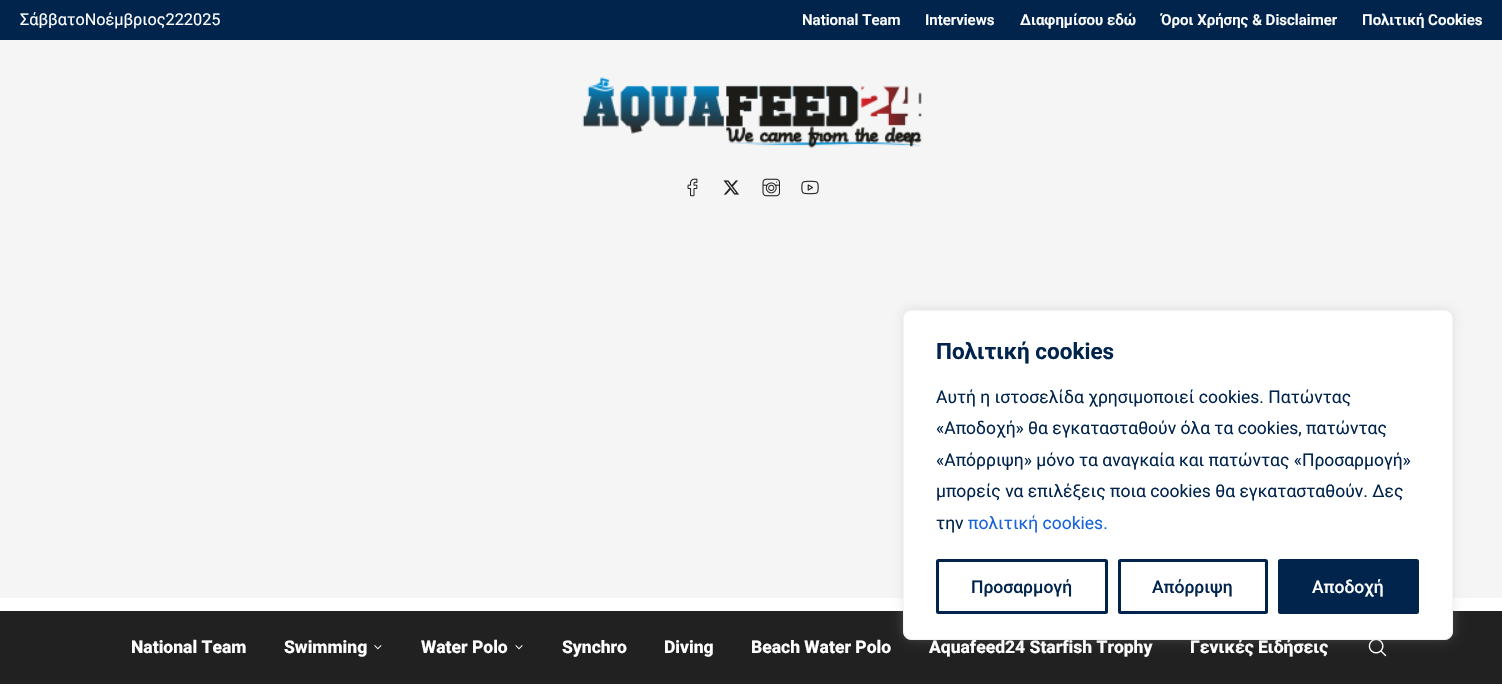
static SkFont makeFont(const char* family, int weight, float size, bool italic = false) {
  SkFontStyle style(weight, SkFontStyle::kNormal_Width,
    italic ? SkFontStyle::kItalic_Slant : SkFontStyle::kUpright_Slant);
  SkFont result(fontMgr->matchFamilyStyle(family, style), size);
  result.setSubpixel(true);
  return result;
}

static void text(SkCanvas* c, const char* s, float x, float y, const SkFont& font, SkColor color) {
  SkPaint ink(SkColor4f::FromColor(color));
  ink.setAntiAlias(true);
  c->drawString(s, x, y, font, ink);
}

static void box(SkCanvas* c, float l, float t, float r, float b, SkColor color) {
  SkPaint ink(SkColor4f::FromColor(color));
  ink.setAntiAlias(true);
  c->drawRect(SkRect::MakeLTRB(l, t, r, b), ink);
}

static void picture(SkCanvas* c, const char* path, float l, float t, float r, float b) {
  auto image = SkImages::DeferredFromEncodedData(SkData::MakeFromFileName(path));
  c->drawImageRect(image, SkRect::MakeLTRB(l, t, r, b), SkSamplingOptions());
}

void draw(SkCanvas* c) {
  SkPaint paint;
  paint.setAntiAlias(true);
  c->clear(0xffffffff);
  box(c, 0, 0, 1502, 40, 0xff01244d);
  SkFont face1 = makeFont("Roboto", 400, 16.25f);
  text(c, "ΣάββατοΝοέμβριος222025", 20, 25, face1, 0xffffffff);
  SkFont face2 = makeFont("Roboto", 600, 15);
  text(c, "National Team", 802, 25, face2, 0xffffffff);
  text(c, "Interviews", 925, 25, face2, 0xffffffff);
  text(c, "Διαφημίσου εδώ", 1020, 25, face2, 0xffffffff);
  text(c, "Όροι Χρήσης & Disclaimer", 1161, 25, face2, 0xffffffff);
  text(c, "Πολιτική Cookies", 1362, 25, face2, 0xffffffff);
  box(c, 0, 40, 1502, 598, 0xfff5f5f5);
  picture(c, "img_01.png", 582, 77, 922, 148);
  picture(c, "img_02.png", 687, 178, 698, 197);
  picture(c, "img_03.png", 723, 180, 739, 195);
  picture(c, "img_04.png", 762, 178, 780, 197);
  picture(c, "img_05.png", 801, 180, 819, 195);
  box(c, 0, 611, 1502, 684, 0xff212121);
  SkFont face3 = makeFont("Roboto", 800, 17.5f);
  text(c, "National Team", 131, 653, face3, 0xffffffff);
  text(c, "Swimming", 284, 653, face3, 0xffffffff);
  picture(c, "img_06.png", 374, 645, 382, 650);
  text(c, "Water Polo", 421, 653, face3, 0xffffffff);
  picture(c, "img_07.png", 515, 645, 523, 650);
  text(c, "Synchro", 562, 653, face3, 0xffffffff);
  text(c, "Diving", 664, 653, face3, 0xffffffff);
  text(c, "Beach Water Polo", 751, 653, face3, 0xffffffff);
  text(c, "Aquafeed24 Starfish Trophy", 929, 653, face3, 0xffffffff);
  text(c, "Γενικές Ειδήσεις", 1190, 653, face3, 0xffffffff);
  picture(c, "img_08.png", 1368, 640, 1387, 657);
  paint.setColor(0x4dacabab);
  paint.setMaskFilter(SkMaskFilter::MakeBlur(kNormal_SkBlurStyle, 6));
  c->drawRoundRect(SkRect::MakeLTRB(903, 309, 1453, 639), 8, 8, paint);
  paint.setMaskFilter(nullptr);
  paint.setColor(0xffffffff);
  c->drawRoundRect(SkRect::MakeLTRB(903.5f, 310.5f, 1452.5f, 639.5f), 7.5f, 7.5f, paint);
  paint.setStyle(SkPaint::kStroke_Style);
  paint.setStrokeWidth(1);
  paint.setColor(0xfff4f4f4);
  c->drawRoundRect(SkRect::MakeLTRB(903.5f, 310.5f, 1452.5f, 639.5f), 7.5f, 7.5f, paint);
  SkFont face4 = makeFont("Roboto", 700, 22.5f);
  text(c, "Πολιτική cookies", 936, 359, face4, 0xff01244d);
  SkFont face5 = makeFont("Roboto", 400, 17.5f);
  text(c, "Αυτή η ιστοσελίδα χρησιμοποιεί cookies. Πατώντας", 936, 403, face5, 0xff01244d);
  text(c, "«Αποδοχή» θα εγκατασταθούν όλα τα cookies, πατώντας", 936, 434, face5, 0xff01244d);
  text(c, "«Απόρριψη» μόνο τα αναγκαία και πατώντας «Προσαρμογή»", 936, 466, face5, 0xff01244d);
  text(c, "μπορείς να επιλέξεις ποια cookies θα εγκατασταθούν. Δες", 936, 497, face5, 0xff01244d);
  text(c, "την", 936, 529, face5, 0xff01244d);
  text(c, "πολιτική cookies.", 968, 529, face5, 0xff1863dc);
  paint.setStrokeWidth(3);
  paint.setColor(0xff01244d);
  c->drawRoundRect(SkRect::MakeLTRB(937.5f, 560.5f, 1106.5f, 612.5f), 1, 1, paint);
  SkFont face6 = makeFont("Roboto", 500, 17.5f);
  text(c, "Προσαρμογή", 971, 593, face6, 0xff01244d);
  c->drawRoundRect(SkRect::MakeLTRB(1119.5f, 560.5f, 1266.5f, 612.5f), 1, 1, paint);
  text(c, "Απόρριψη", 1152, 593, face6, 0xff01244d);
  paint.setStyle(SkPaint::kFill_Style);
  c->drawRoundRect(SkRect::MakeLTRB(1279.5f, 560.5f, 1417.5f, 612.5f), 1, 1, paint);
  paint.setStyle(SkPaint::kStroke_Style);
  c->drawRoundRect(SkRect::MakeLTRB(1279.5f, 560.5f, 1417.5f, 612.5f), 1, 1, paint);
  text(c, "Αποδοχή", 1312, 593, face6, 0xffffffff);
}
